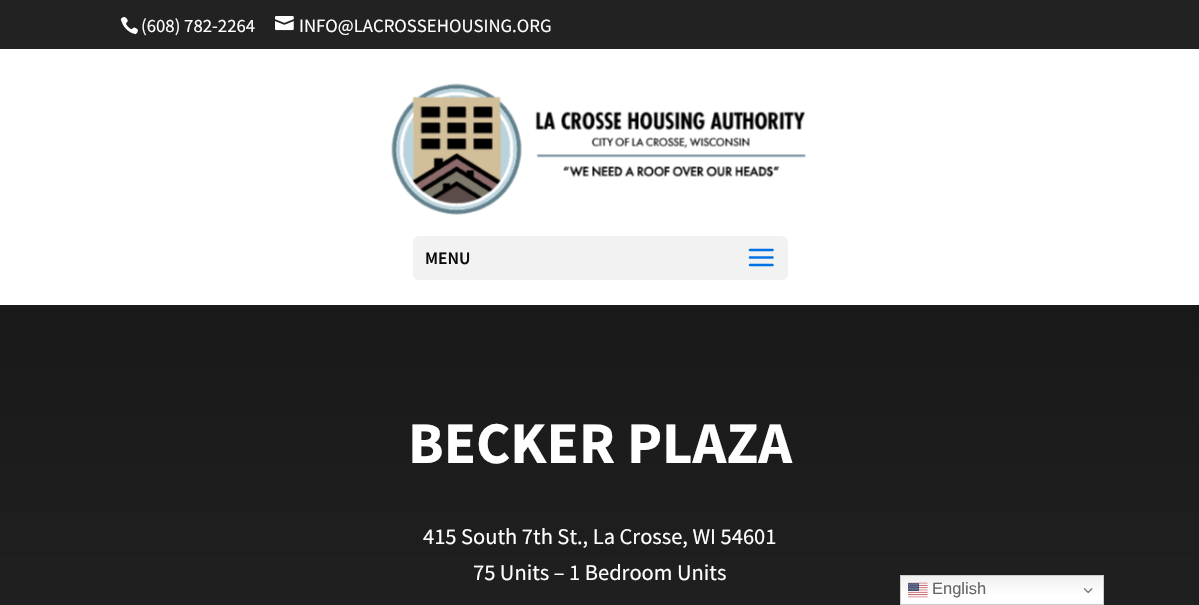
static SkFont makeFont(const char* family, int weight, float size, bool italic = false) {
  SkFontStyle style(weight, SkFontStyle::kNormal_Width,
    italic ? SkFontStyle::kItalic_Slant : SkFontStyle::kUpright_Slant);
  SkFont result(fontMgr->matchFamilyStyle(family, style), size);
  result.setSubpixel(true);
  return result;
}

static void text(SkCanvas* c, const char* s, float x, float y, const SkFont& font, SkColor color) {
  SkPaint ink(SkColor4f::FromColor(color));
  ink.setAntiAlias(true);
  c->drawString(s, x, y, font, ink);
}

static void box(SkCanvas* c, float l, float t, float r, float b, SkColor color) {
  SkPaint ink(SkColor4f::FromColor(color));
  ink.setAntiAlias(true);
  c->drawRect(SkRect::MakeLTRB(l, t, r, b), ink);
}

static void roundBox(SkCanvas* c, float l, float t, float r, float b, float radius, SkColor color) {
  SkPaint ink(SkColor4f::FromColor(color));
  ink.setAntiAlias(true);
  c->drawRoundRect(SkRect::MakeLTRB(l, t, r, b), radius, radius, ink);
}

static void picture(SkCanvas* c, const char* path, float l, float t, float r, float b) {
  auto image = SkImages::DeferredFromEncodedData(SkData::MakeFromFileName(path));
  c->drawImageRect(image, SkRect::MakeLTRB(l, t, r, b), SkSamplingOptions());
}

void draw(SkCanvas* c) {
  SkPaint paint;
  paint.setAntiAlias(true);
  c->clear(0xffffffff);
  box(c, 0, 0, 1199, 49, 0xff222222);
  picture(c, "img_01.png", 120, 17, 138, 35);
  SkFont face1 = makeFont("Source Sans Pro", 400, 18.75f);
  text(c, "(608) 782-2264", 141, 32, face1, 0xffffffff);
  picture(c, "img_02.png", 275, 16, 294, 31);
  text(c, "INFO@LACROSSEHOUSING.ORG", 299, 32, face1, 0xffffffff);
  picture(c, "img_03.png", 391, 83, 806, 215);
  roundBox(c, 413, 236, 788, 280, 6, 0xfff2f2f2);
  SkFont face2 = makeFont("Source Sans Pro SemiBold", 600, 17.5f);
  text(c, "MENU", 425, 264, face2, 0xff0a0a0a);
  picture(c, "img_04.png", 748, 248, 774, 267);
  {
    const SkColor colors[] = {0xff191919, 0xff222222};
    const float stops[] = {0, 1};
    const SkPoint ends[] = {{600, 305}, {600, 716}};
    paint.setShader(SkGradientShader::MakeLinear(ends, colors, stops, 2, SkTileMode::kClamp));
    paint.setAlpha(255);
  }
  c->drawRect(SkRect::MakeLTRB(0, 305, 1199, 605), paint);
  SkFont face3 = makeFont("Source Sans Pro", 700, 59);
  text(c, "BECKER PLAZA", 408, 463, face3, 0xffffffff);
  SkFont face4 = makeFont("Source Sans Pro", 400, 22.5f);
  text(c, "415 South 7th St., La Crosse, WI 54601", 423, 544, face4, 0xffffffff);
  text(c, "75 Units – 1 Bedroom Units", 473, 580, face4, 0xffffffff);
  {
    const SkColor colors[] = {0xffefefef, 0xffffffff};
    const float stops[] = {0, 0.7f};
    const SkPoint ends[] = {{1002, 575}, {1002, 605}};
    paint.setShader(SkGradientShader::MakeLinear(ends, colors, stops, 2, SkTileMode::kClamp));
    paint.setAlpha(255);
  }
  c->drawRect(SkRect::MakeLTRB(901, 576, 1103, 604), paint);
  paint.setStyle(SkPaint::kStroke_Style);
  paint.setStrokeWidth(1);
  paint.setShader(nullptr);
  paint.setColor(0xffcccccc);
  c->drawRect(SkRect::MakeLTRB(900.5f, 575.5f, 1103.5f, 604.5f), paint);
  picture(c, "img_05.png", 908, 582, 928, 598);
  SkFont face5 = makeFont("Liberation Sans", 400, 16.5f);
  text(c, "English", 932, 594, face5, 0xff666666);
  picture(c, "img_06.png", 1084, 588, 1093, 594);
}
